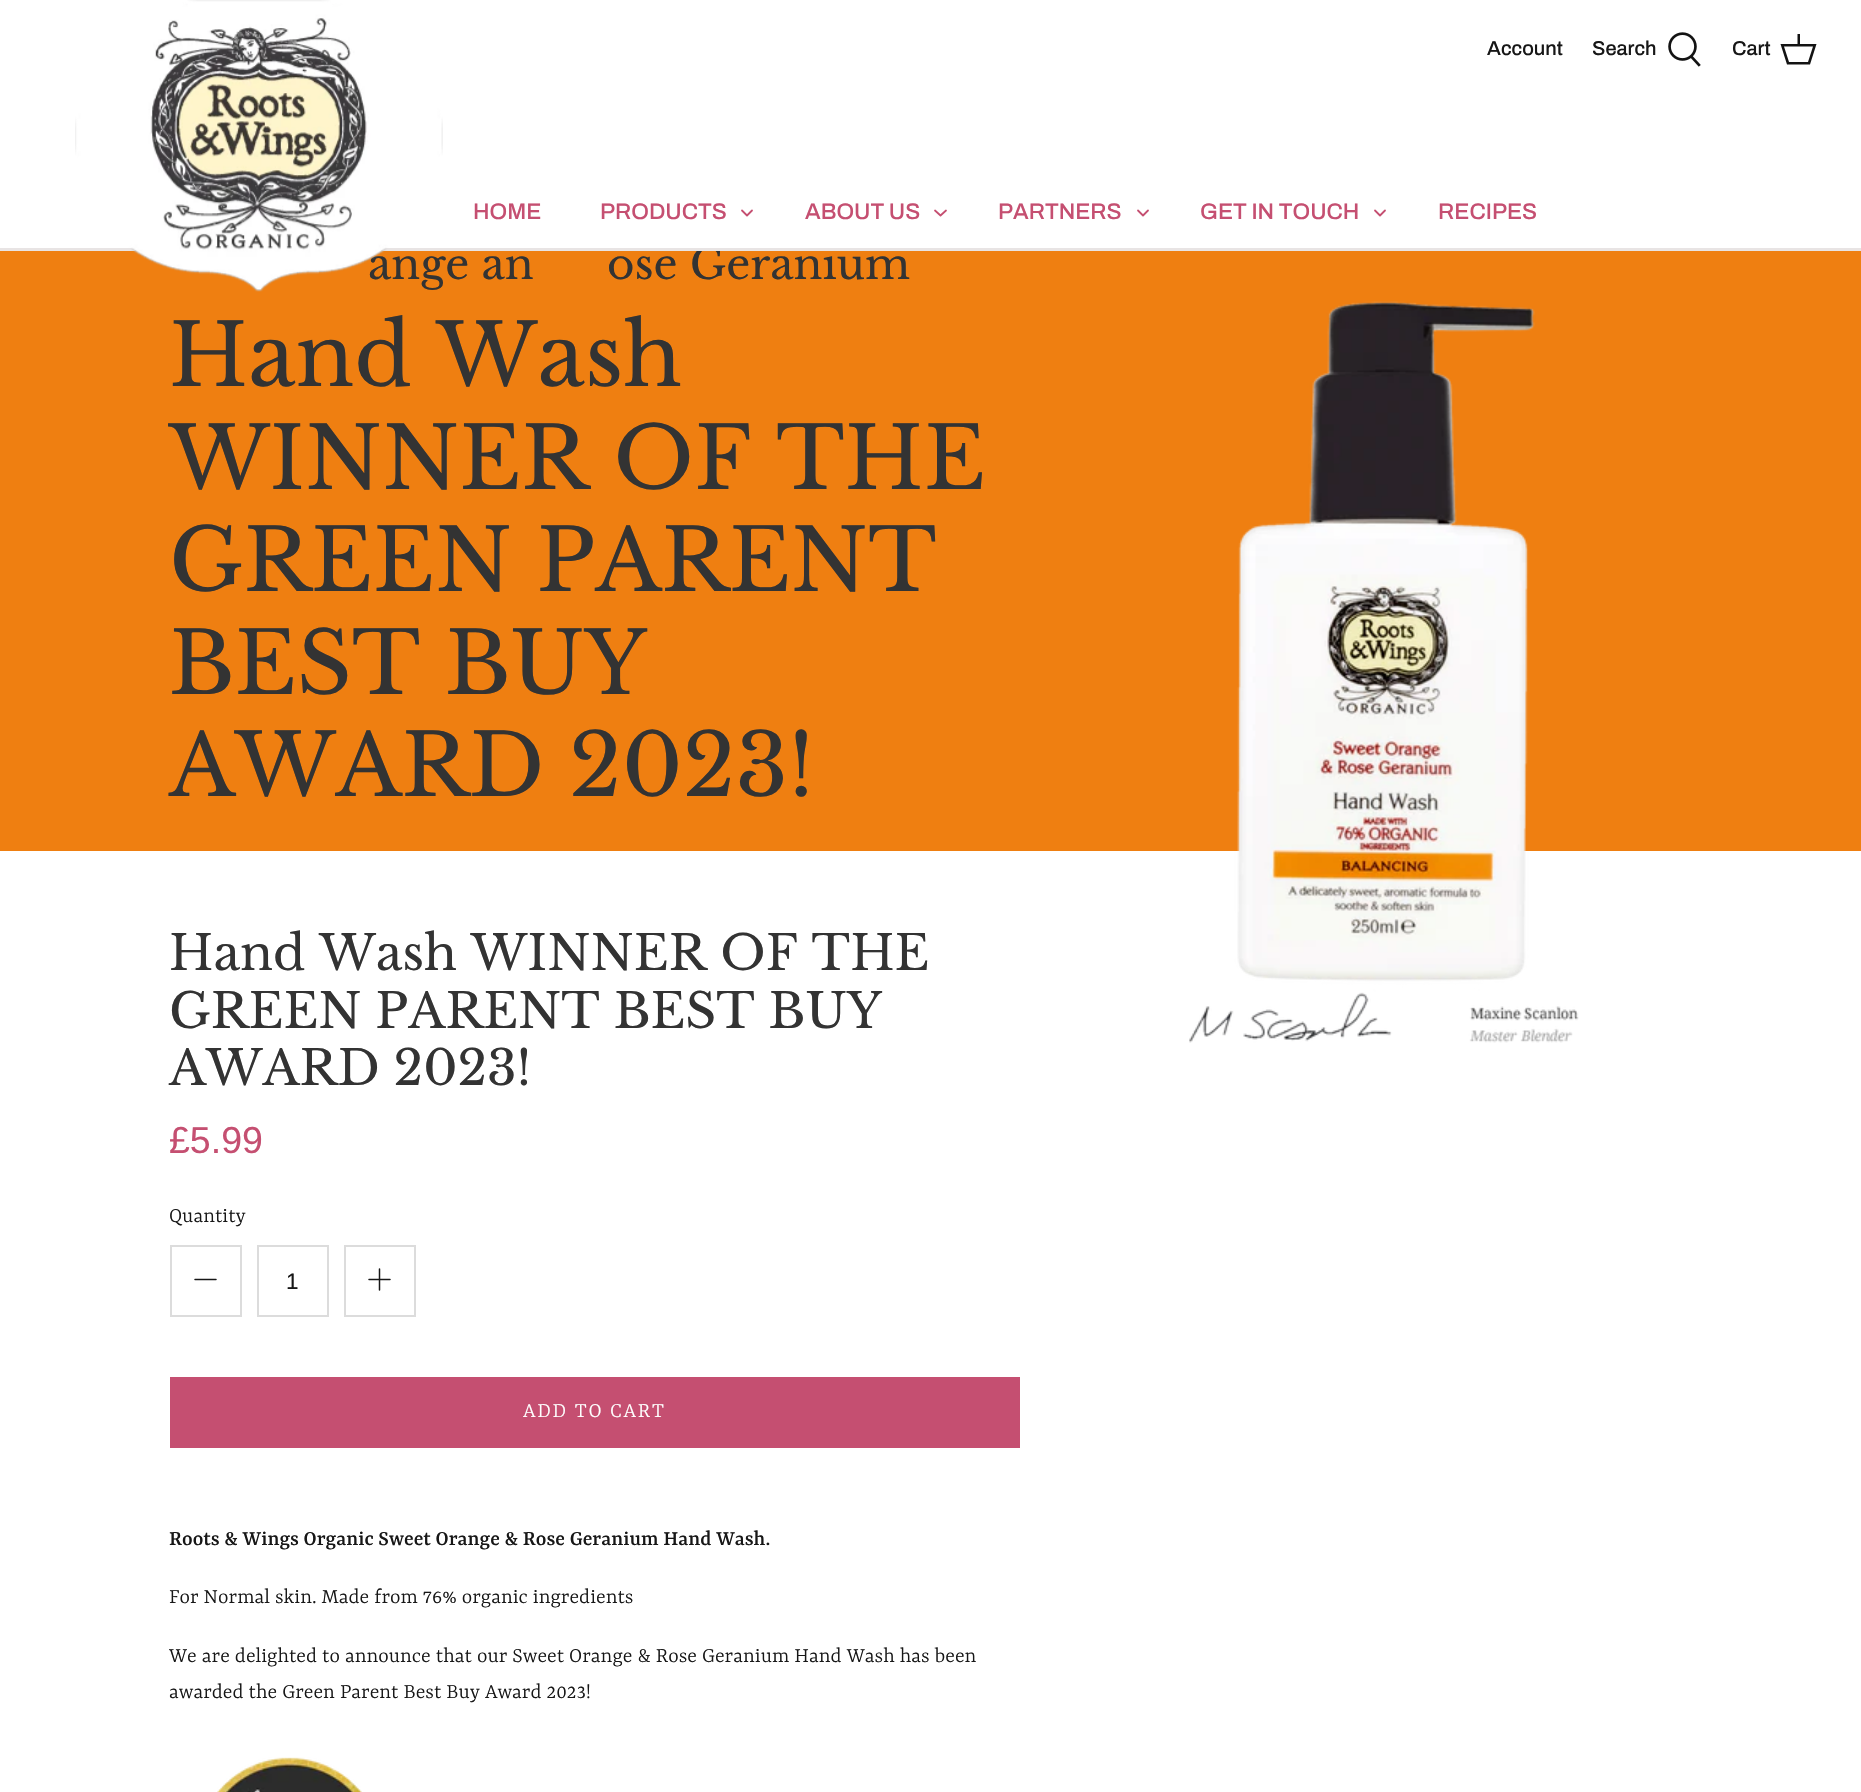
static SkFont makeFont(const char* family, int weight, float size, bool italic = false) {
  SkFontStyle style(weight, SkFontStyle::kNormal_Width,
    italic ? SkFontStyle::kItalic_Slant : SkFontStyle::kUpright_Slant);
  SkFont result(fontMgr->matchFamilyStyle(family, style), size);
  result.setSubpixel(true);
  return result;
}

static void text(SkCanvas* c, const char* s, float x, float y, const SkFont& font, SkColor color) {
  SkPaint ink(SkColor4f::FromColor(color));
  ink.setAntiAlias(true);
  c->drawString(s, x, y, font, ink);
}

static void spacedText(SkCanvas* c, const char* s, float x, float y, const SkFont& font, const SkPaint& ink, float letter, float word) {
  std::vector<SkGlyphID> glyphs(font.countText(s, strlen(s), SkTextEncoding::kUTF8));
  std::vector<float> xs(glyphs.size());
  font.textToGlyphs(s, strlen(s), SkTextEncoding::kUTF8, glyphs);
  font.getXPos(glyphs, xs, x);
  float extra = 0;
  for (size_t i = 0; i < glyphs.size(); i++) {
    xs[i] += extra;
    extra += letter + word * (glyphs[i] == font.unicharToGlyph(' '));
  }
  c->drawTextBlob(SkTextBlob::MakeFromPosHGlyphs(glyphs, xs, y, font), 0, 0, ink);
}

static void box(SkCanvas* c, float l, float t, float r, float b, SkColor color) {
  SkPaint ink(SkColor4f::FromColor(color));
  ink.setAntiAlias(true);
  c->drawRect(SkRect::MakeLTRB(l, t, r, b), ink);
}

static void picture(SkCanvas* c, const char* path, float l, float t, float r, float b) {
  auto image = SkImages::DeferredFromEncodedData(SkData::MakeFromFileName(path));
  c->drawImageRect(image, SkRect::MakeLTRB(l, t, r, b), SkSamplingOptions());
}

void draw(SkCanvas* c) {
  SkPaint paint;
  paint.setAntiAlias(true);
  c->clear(0xffffffff);
  box(c, 0, 251, 1861, 851, 0xffef7f11);
  SkFont face1 = makeFont("Libre Baskerville", 400, 42);
  text(c, "ose Geranium", 607, 279, face1, 0xff333333);
  box(c, 700, 245, 833, 248, 0xffffffff);
  box(c, 0, 248, 1861, 251, 0xffe8e4e4);
  text(c, "ange an", 368, 279, face1, 0xff333333);
  picture(c, "img_01.png", 75, 0, 443, 292);
  SkFont face2 = makeFont("Archivo", 500, 20);
  text(c, "Account", 1487, 55, face2, 0xff171717);
  text(c, "Search", 1592, 55, face2, 0xff171717);
  picture(c, "img_02.png", 1668, 32, 1701, 67);
  text(c, "Cart", 1732, 55, face2, 0xff171717);
  paint.setColor(0xff131313);
  c->drawPath(SkPathBuilder().moveTo(1797.5f, 44).lineTo(1797.5f, 34).lineTo(1800, 34).lineTo(1800, 44).lineTo(1816.5f, 44).lineTo(1810, 64.5f).lineTo(1787, 64.5f).lineTo(1780.5f, 44).close().moveTo(1784, 46.5f).lineTo(1789, 62).lineTo(1808, 62).lineTo(1813, 46.5f).close().detach(), paint);
  SkFont face3 = makeFont("Archivo", 500, 22.5f);
  text(c, "HOME", 473, 219, face3, 0xffc54f71);
  text(c, "PRODUCTS", 600, 219, face3, 0xffc54f71);
  paint.setStyle(SkPaint::kStroke_Style);
  paint.setStrokeWidth(1.8f);
  paint.setStrokeCap(SkPaint::kRound_Cap);
  paint.setStrokeJoin(SkPaint::kRound_Join);
  paint.setColor(0xffc54f71);
  c->drawPath(SkPathBuilder().moveTo(742, 210.5f).lineTo(747, 215.5f).lineTo(752, 210.5f).detach(), paint);
  text(c, "ABOUT US", 805, 219, face3, 0xffc54f71);
  c->drawPath(SkPathBuilder().moveTo(935, 210.5f).lineTo(940.5f, 215.5f).lineTo(946, 210.5f).detach(), paint);
  text(c, "PARTNERS", 998, 219, face3, 0xffc54f71);
  c->drawPath(SkPathBuilder().moveTo(1138, 210.5f).lineTo(1143, 215.5f).lineTo(1148, 210.5f).detach(), paint);
  text(c, "GET IN TOUCH", 1200, 219, face3, 0xffc54f71);
  c->drawPath(SkPathBuilder().moveTo(1375, 210.5f).lineTo(1380, 215.5f).lineTo(1385, 210.5f).detach(), paint);
  text(c, "RECIPES", 1438, 219, face3, 0xffc54f71);
  SkFont face4 = makeFont("Libre Baskerville", 400, 85.5f);
  text(c, "Hand Wash", 169, 386, face4, 0xff333333);
  text(c, "WINNER OF THE", 169, 489, face4, 0xff333333);
  text(c, "GREEN PARENT", 169, 591, face4, 0xff333333);
  text(c, "BEST BUY", 169, 694, face4, 0xff333333);
  text(c, "AWARD 2023!", 169, 796, face4, 0xff333333);
  picture(c, "img_03.png", 1189, 301, 1579, 1043);
  SkFont face5 = makeFont("Libre Baskerville", 400, 48);
  text(c, "Hand Wash WINNER OF THE", 169, 970, face5, 0xff333333);
  text(c, "GREEN PARENT BEST BUY", 169, 1028, face5, 0xff333333);
  text(c, "AWARD 2023!", 169, 1085, face5, 0xff333333);
  SkFont face6 = makeFont("Liberation Sans", 400, 37.5f);
  text(c, "£5.99", 169, 1153, face6, 0xffc54f71);
  SkFont face7 = makeFont("Yrsa", 300, 22.5f);
  text(c, "Quantity", 169, 1222, face7, 0xff171717);
  paint.setStrokeWidth(2);
  paint.setStrokeCap(SkPaint::kButt_Cap);
  paint.setStrokeJoin(SkPaint::kMiter_Join);
  paint.setColor(0xffdcdcdc);
  c->drawRect(SkRect::MakeLTRB(171, 1246, 241, 1316), paint);
  paint.setStrokeWidth(1.5f);
  paint.setStrokeCap(SkPaint::kRound_Cap);
  paint.setStrokeJoin(SkPaint::kRound_Join);
  paint.setColor(0xff171717);
  c->drawPath(SkPathBuilder().moveTo(195, 1279.5f).lineTo(216, 1279.5f).detach(), paint);
  paint.setStrokeWidth(2);
  paint.setStrokeCap(SkPaint::kButt_Cap);
  paint.setStrokeJoin(SkPaint::kMiter_Join);
  paint.setColor(0xffdcdcdc);
  c->drawRect(SkRect::MakeLTRB(258, 1246, 328, 1316), paint);
  SkFont face8 = makeFont("Liberation Sans", 400, 22.5f);
  text(c, "1", 286, 1289, face8, 0xff171717);
  c->drawRect(SkRect::MakeLTRB(345, 1246, 415, 1316), paint);
  paint.setStrokeWidth(1.5f);
  paint.setStrokeCap(SkPaint::kRound_Cap);
  paint.setStrokeJoin(SkPaint::kRound_Join);
  paint.setColor(0xff171717);
  c->drawPath(SkPathBuilder().moveTo(379.5f, 1269).lineTo(379.5f, 1290).moveTo(369, 1279.5f).lineTo(390, 1279.5f).detach(), paint);
  box(c, 170, 1377, 1020, 1448, 0xffc54f71);
  paint.setStyle(SkPaint::kFill_Style);
  paint.setColor(0xffffffff);
  spacedText(c, "ADD TO CART", 523, 1417, face7, paint, 1.75f, 0);
  SkFont face9 = makeFont("Yrsa", 500, 22.5f);
  text(c, "Roots & Wings Organic Sweet Orange & Rose Geranium Hand Wash.", 169, 1545, face9, 0xff171717);
  text(c, "For Normal skin. Made from 76% organic ingredients", 169, 1603, face7, 0xff171717);
  text(c, "We are delighted to announce that our Sweet Orange & Rose Geranium Hand Wash has been", 169, 1662, face7, 0xff171717);
  text(c, "awarded the Green Parent Best Buy Award 2023!", 169, 1698, face7, 0xff171717);
  picture(c, "img_04.png", 217, 1757, 362, 1792);
}
